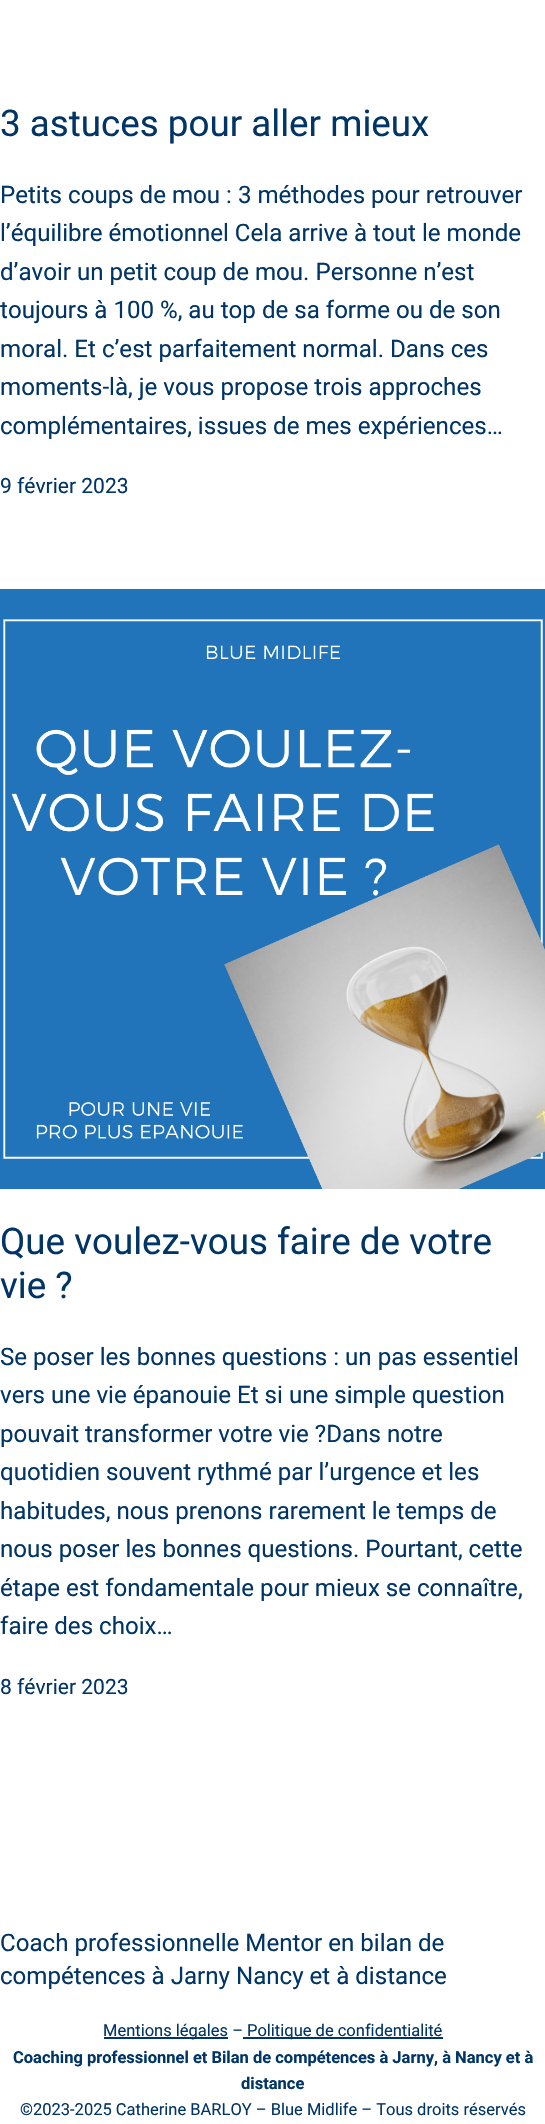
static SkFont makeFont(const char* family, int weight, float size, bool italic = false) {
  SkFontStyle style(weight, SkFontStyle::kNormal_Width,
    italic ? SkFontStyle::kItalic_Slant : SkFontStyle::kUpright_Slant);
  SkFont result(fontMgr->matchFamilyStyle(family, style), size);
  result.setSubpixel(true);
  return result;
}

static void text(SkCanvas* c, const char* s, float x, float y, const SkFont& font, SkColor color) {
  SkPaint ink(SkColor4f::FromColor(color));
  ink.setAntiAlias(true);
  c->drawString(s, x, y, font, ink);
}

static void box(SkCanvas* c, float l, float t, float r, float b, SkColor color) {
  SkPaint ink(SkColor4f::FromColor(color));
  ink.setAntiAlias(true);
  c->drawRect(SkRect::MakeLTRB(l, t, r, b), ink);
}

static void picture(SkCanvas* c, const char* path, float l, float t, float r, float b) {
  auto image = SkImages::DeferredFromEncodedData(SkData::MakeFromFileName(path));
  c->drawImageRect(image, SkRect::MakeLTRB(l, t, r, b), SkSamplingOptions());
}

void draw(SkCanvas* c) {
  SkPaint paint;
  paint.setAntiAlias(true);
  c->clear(0xffffffff);
  SkFont face1 = makeFont("Roboto", 400, 36.75f);
  text(c, "3 astuces pour aller mieux", 0, 136, face1, 0xff013566);
  SkFont face2 = makeFont("Roboto", 400, 24.1f);
  text(c, "Petits coups de mou : 3 méthodes pour retrouver", 0, 203, face2, 0xff013566);
  text(c, "l’équilibre émotionnel Cela arrive à tout le monde", 0, 241, face2, 0xff013566);
  text(c, "d’avoir un petit coup de mou. Personne n’est", 0, 280, face2, 0xff013566);
  text(c, "toujours à 100 %, au top de sa forme ou de son", 0, 318, face2, 0xff013566);
  text(c, "moral. Et c’est parfaitement normal. Dans ces", 0, 357, face2, 0xff013566);
  text(c, "moments-là, je vous propose trois approches", 0, 395, face2, 0xff013566);
  text(c, "complémentaires, issues de mes expériences…", 0, 434, face2, 0xff013566);
  SkFont face3 = makeFont("Roboto", 400, 21);
  text(c, "9 février 2023", 0, 493, face3, 0xff013566);
  picture(c, "img_01.png", 0, 589, 545, 1189);
  text(c, "Que voulez-vous faire de votre", 0, 1254, face1, 0xff013566);
  text(c, "vie ?", 0, 1298, face1, 0xff013566);
  text(c, "Se poser les bonnes questions : un pas essentiel", 0, 1365, face2, 0xff013566);
  text(c, "vers une vie épanouie Et si une simple question", 0, 1403, face2, 0xff013566);
  text(c, "pouvait transformer votre vie ?Dans notre", 0, 1442, face2, 0xff013566);
  text(c, "quotidien souvent rythmé par l’urgence et les", 0, 1480, face2, 0xff013566);
  text(c, "habitudes, nous prenons rarement le temps de", 0, 1519, face2, 0xff013566);
  text(c, "nous poser les bonnes questions. Pourtant, cette", 0, 1557, face2, 0xff013566);
  text(c, "étape est fondamentale pour mieux se connaître,", 0, 1596, face2, 0xff013566);
  text(c, "faire des choix…", 0, 1634, face2, 0xff013566);
  text(c, "8 février 2023", 0, 1694, face3, 0xff013566);
  text(c, "Coach professionnelle Mentor en bilan de", 0, 1951, face2, 0xff013566);
  text(c, "compétences à Jarny Nancy et à distance", 0, 1984, face2, 0xff013566);
  box(c, 104, 2037, 228, 2039, 0xff013566);
  SkFont face4 = makeFont("Roboto", 400, 16.5f);
  text(c, "Mentions légales –", 103, 2036, face4, 0xff013566);
  box(c, 243, 2037, 443, 2039, 0xff013566);
  text(c, "Politique de confidentialité", 247, 2036, face4, 0xff013566);
  SkFont face5 = makeFont("Roboto", 700, 16.5f);
  text(c, "Coaching professionnel et Bilan de compétences à Jarny, à Nancy et à", 13, 2063, face5, 0xff013566);
  text(c, "distance", 241, 2089, face5, 0xff013566);
  text(c, "©2023-2025 Catherine BARLOY – Blue Midlife – Tous droits réservés", 20, 2115, face4, 0xff013566);
}
